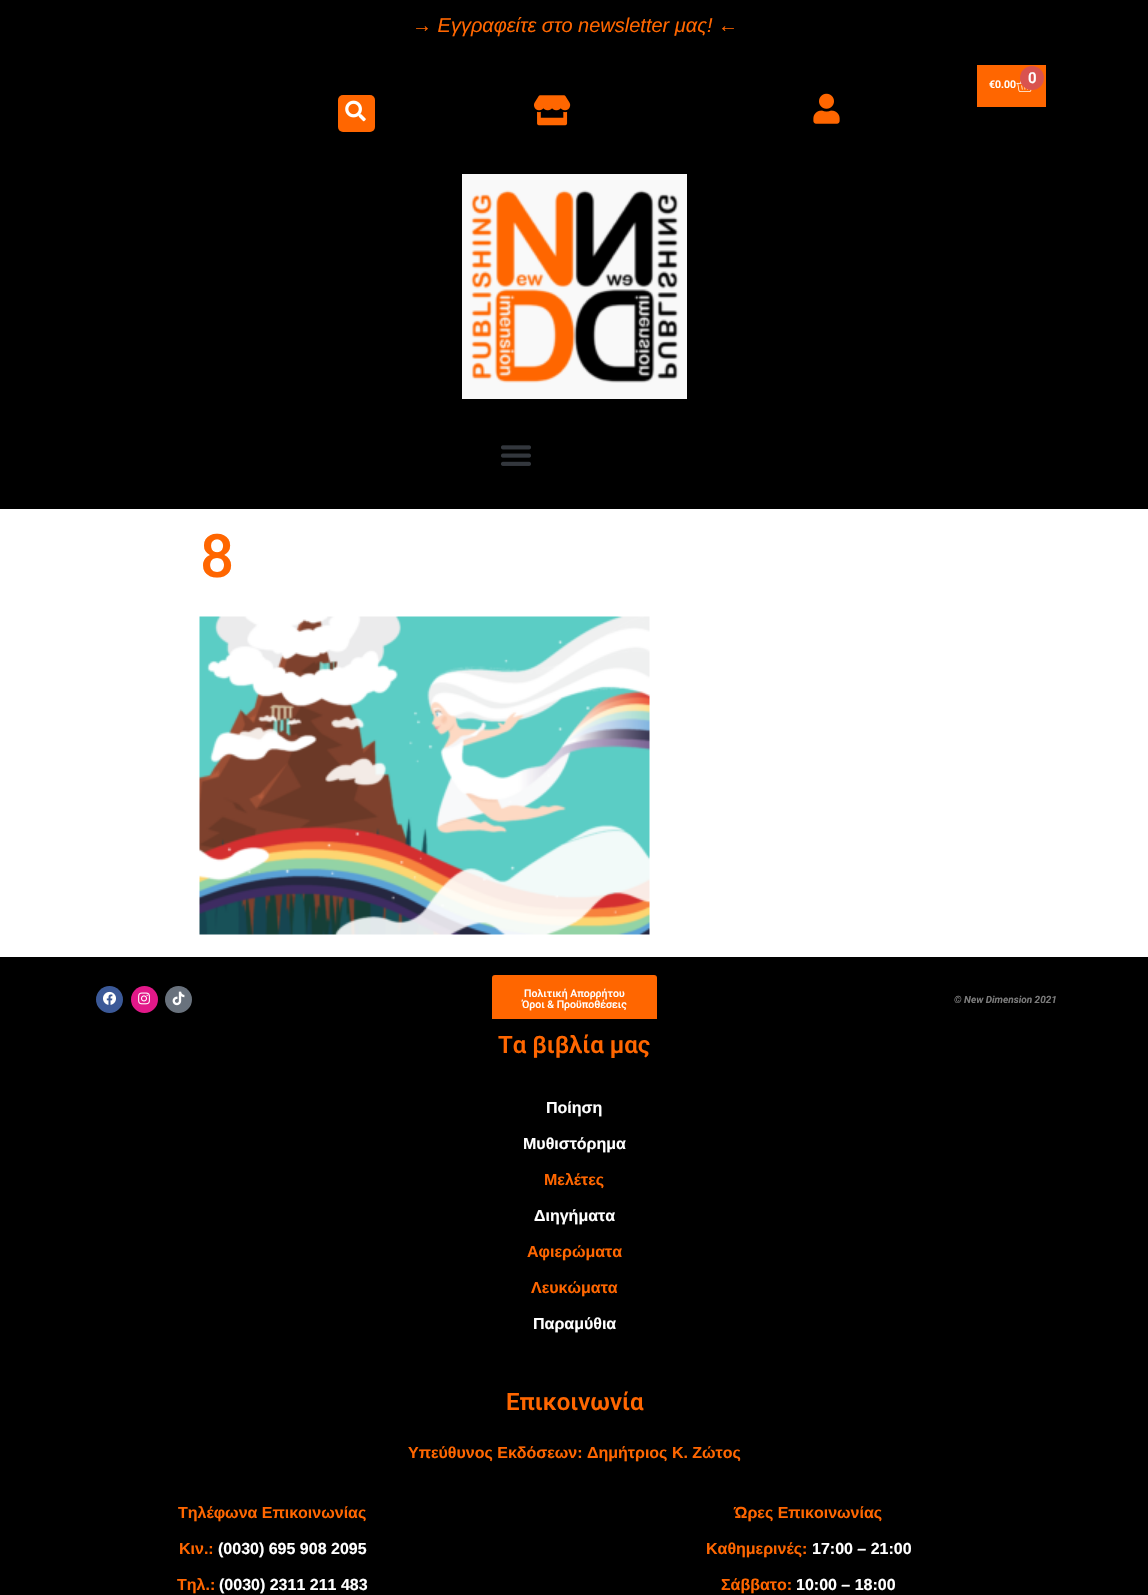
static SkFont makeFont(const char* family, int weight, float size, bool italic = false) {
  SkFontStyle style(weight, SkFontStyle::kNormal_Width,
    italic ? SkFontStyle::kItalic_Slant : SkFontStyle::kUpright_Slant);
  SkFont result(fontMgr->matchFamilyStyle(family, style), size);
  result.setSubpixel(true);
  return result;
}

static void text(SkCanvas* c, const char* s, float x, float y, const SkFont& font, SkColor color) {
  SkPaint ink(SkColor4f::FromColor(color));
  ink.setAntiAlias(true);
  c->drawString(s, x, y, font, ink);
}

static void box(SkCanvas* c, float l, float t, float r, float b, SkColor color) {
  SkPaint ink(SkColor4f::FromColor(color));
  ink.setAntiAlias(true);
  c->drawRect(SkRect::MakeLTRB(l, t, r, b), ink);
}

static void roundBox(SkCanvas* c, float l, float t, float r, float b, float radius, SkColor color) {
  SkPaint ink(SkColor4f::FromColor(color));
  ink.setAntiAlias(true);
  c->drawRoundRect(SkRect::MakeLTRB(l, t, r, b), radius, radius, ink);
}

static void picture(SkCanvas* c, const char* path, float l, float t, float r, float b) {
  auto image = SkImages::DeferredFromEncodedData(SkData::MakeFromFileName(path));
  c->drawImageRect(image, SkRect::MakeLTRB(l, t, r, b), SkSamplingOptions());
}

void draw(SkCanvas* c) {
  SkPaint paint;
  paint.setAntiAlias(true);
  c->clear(0xffffffff);
  box(c, 0, 0, 1148, 509, 0xff000000);
  SkFont face1 = makeFont("Liberation Sans", 400, 20, true);
  text(c, "→ Εγγραφείτε στο newsletter μας! ←", 412, 32, face1, 0xffff6600);
  box(c, 977, 65, 1046, 107, 0xffff6600);
  SkFont face2 = makeFont("Roboto", 600, 10.5f);
  text(c, "€0.00", 989, 88, face2, 0xffffffff);
  picture(c, "img_01.png", 1016, 80, 1032, 92);
  paint.setColor(0xffd9534f);
  c->drawCircle(1032, 78, 12, paint);
  SkFont face3 = makeFont("Roboto", 600, 15);
  text(c, "0", 1028, 83, face3, 0xffffffff);
  roundBox(c, 338, 95, 375, 132, 5, 0xffff6600);
  picture(c, "img_02.png", 345, 100, 366, 122);
  picture(c, "img_03.png", 534, 95, 571, 126);
  picture(c, "img_04.png", 813, 93, 840, 124);
  picture(c, "img_05.png", 462, 174, 687, 399);
  picture(c, "img_06.png", 501, 445, 531, 466);
  SkFont face4 = makeFont("Roboto", 500, 60);
  text(c, "8", 200, 577, face4, 0xffff6600);
  picture(c, "img_07.png", 199, 616, 650, 935);
  box(c, 0, 957, 1148, 1019, 0xff000000);
  paint.setColor(0xff3b5998);
  c->drawCircle(109.5f, 999.5f, 13.5f, paint);
  picture(c, "img_08.png", 103, 991, 116, 1005);
  paint.setColor(0xffe21889);
  c->drawCircle(144.5f, 999.5f, 13.5f, paint);
  picture(c, "img_09.png", 138, 992, 150, 1005);
  paint.setColor(0xff69727d);
  c->drawCircle(178.5f, 999.5f, 13.5f, paint);
  picture(c, "img_10.png", 172, 991, 185, 1006);
  roundBox(c, 492, 975, 657, 1026, 3, 0xffff6600);
  SkFont face5 = makeFont("Roboto", 500, 10.5f);
  text(c, "Πολιτική Απορρήτου", 524, 997, face5, 0xffffffff);
  text(c, "Όροι & Προϋποθέσεις", 522, 1008, face5, 0xffffffff);
  SkFont face6 = makeFont("Roboto", 700, 10, true);
  text(c, "© New Dimension 2021", 954, 1003, face6, 0xff7a7a7a);
  box(c, 0, 1019, 1148, 1595, 0xff000000);
  SkFont face7 = makeFont("Roboto", 600, 24);
  text(c, "Τα βιβλία μας", 498, 1053, face7, 0xffff6600);
  SkFont face8 = makeFont("Liberation Sans", 700, 16);
  text(c, "Ποίηση", 546, 1113, face8, 0xffffffff);
  text(c, "Μυθιστόρημα", 523, 1149, face8, 0xffffffff);
  text(c, "Μελέτες", 544, 1185, face8, 0xffff6600);
  text(c, "Διηγήματα", 534, 1221, face8, 0xffffffff);
  text(c, "Αφιερώματα", 527, 1257, face8, 0xffff6600);
  text(c, "Λευκώματα", 531, 1293, face8, 0xffff6600);
  text(c, "Παραμύθια", 533, 1329, face8, 0xffffffff);
  text(c, "Επικοινωνία", 506, 1410, face7, 0xffff6600);
  text(c, "Υπεύθυνος Εκδόσεων: Δημήτριος Κ. Ζώτος", 408, 1458, face8, 0xffff6600);
  text(c, "Τηλέφωνα Επικοινωνίας", 178, 1518, face8, 0xffff6600);
  text(c, "Κιν.:", 179, 1554, face8, 0xffff6600);
  text(c, "(0030) 695 908 2095", 218, 1554, face8, 0xffffffff);
  text(c, "Τηλ.:", 177, 1590, face8, 0xffff6600);
  text(c, "(0030) 2311 211 483", 219, 1590, face8, 0xffffffff);
  text(c, "Ώρες Επικοινωνίας", 734, 1518, face8, 0xffff6600);
  text(c, "Καθημερινές:", 706, 1554, face8, 0xffff6600);
  text(c, "17:00 – 21:00", 812, 1554, face8, 0xffffffff);
  text(c, "Σάββατο:", 721, 1590, face8, 0xffff6600);
  text(c, "10:00 – 18:00", 796, 1590, face8, 0xffffffff);
}
